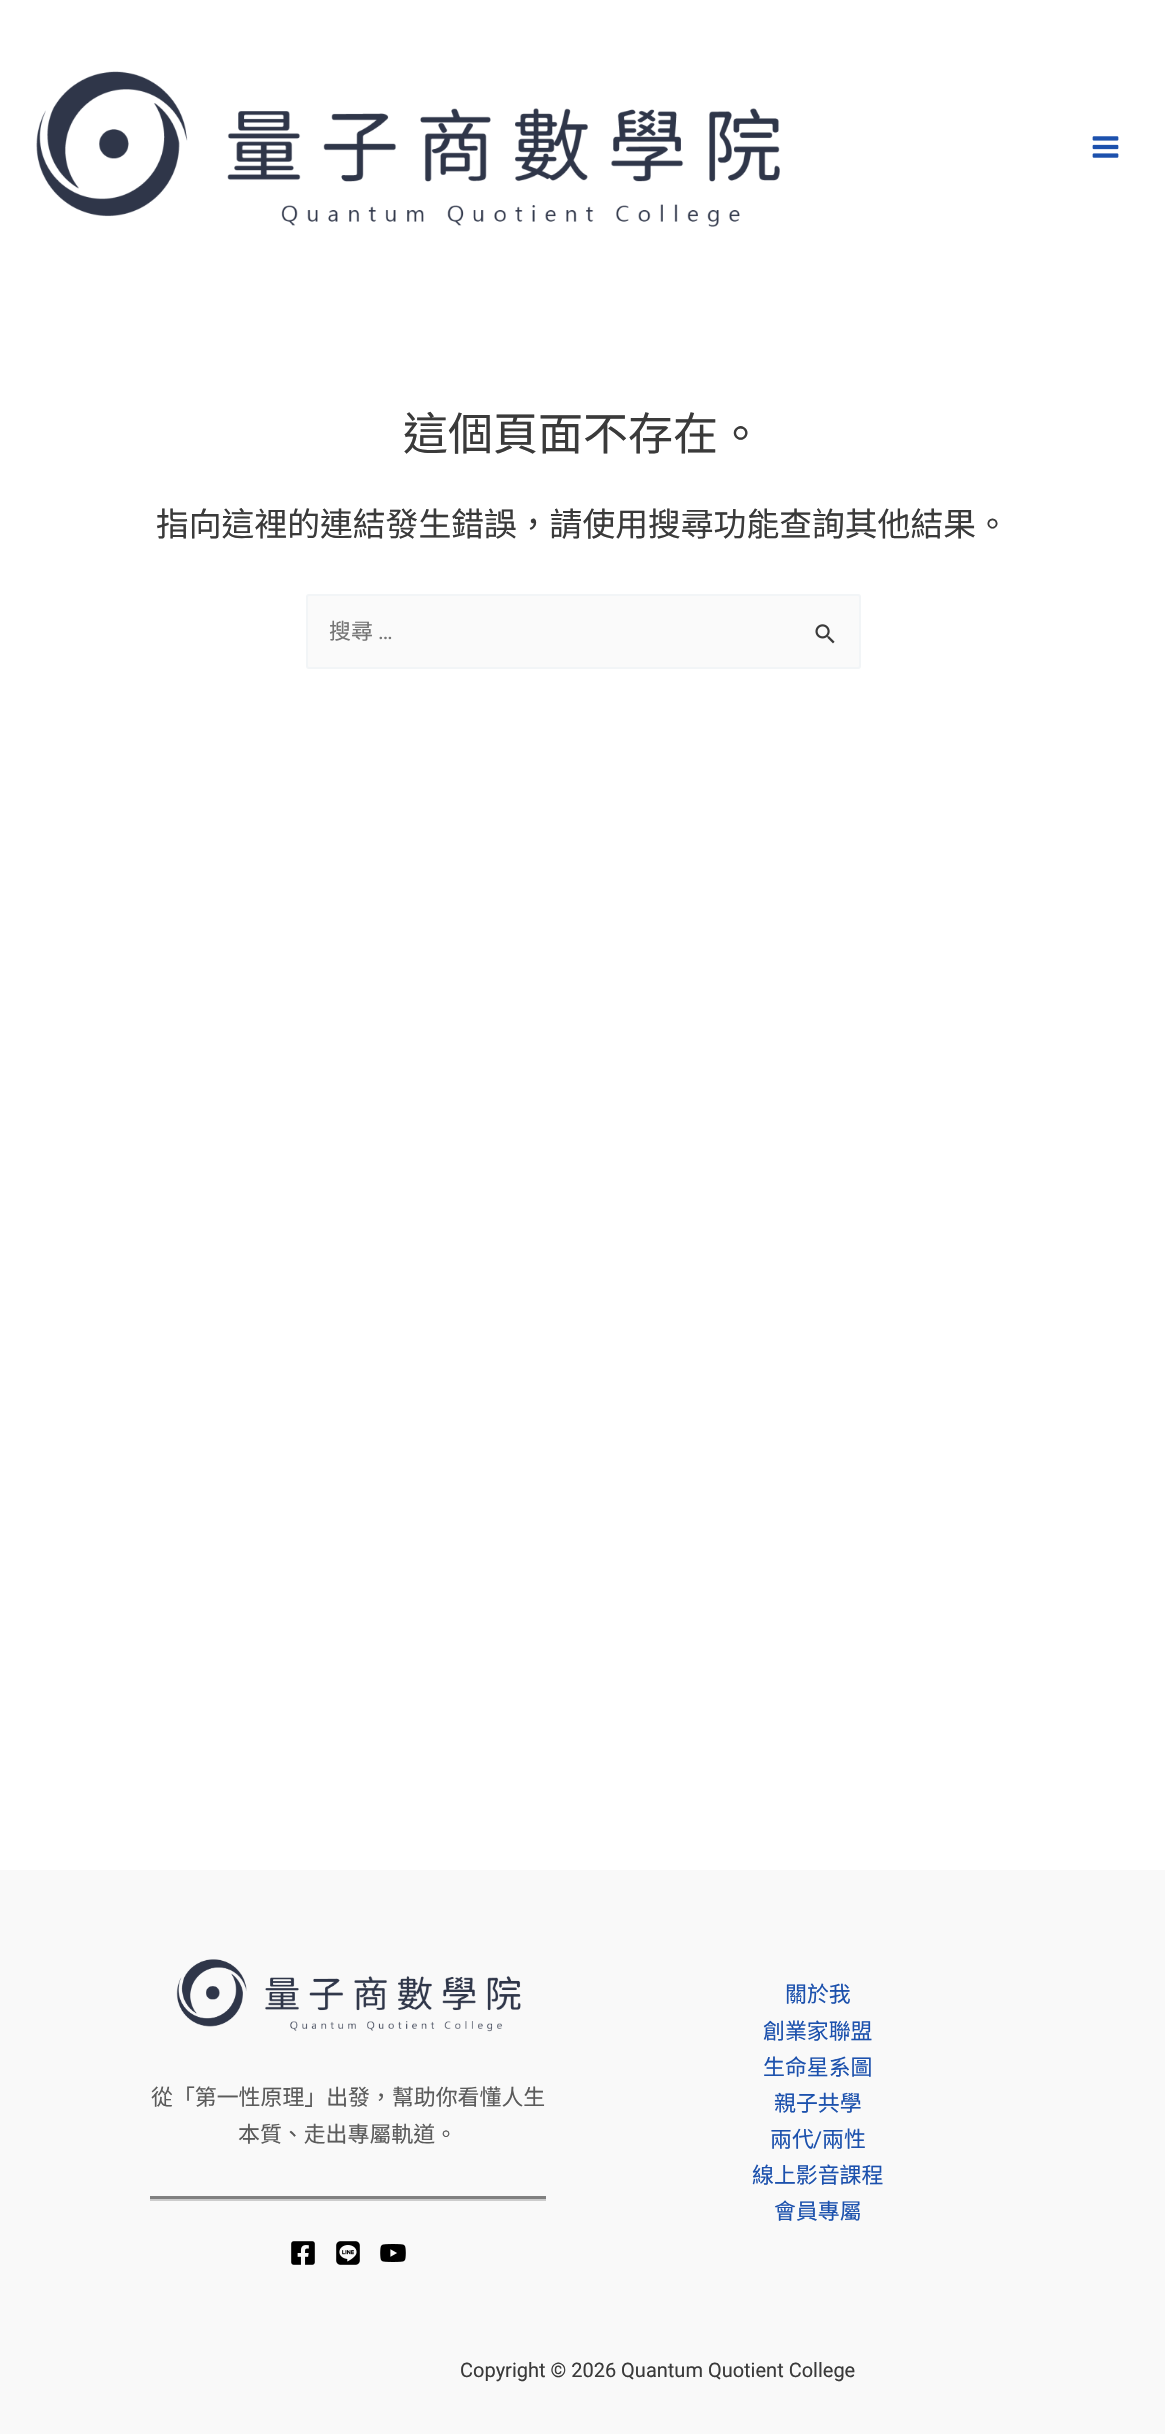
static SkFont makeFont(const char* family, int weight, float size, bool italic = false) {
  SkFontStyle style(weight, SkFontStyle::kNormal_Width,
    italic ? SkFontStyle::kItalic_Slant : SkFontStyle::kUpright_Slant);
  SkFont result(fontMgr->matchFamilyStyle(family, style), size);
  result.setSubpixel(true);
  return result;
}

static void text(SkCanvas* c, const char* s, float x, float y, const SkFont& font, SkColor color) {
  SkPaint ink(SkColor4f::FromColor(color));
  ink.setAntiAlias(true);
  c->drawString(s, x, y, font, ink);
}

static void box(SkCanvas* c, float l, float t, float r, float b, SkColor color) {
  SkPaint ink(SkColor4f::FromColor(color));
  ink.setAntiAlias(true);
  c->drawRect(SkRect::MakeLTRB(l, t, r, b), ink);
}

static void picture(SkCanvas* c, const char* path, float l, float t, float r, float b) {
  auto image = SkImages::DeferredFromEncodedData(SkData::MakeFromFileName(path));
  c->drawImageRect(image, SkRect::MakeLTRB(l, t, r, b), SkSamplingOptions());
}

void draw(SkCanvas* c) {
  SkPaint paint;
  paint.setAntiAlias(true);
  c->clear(0xffffffff);
  picture(c, "img_01.png", 36, 71, 780, 227);
  picture(c, "img_02.png", 1092, 136, 1119, 158);
  SkFont face1 = makeFont("Noto Sans CJK TC", 400, 45);
  text(c, "這個頁面不存在。", 403, 450, face1, 0xff3a3a3a);
  SkFont face2 = makeFont("Noto Sans CJK TC", 400, 32.8f);
  text(c, "指向這裡的連結發生錯誤，請使用搜尋功能查詢其他結果。", 156, 536, face2, 0xff3a3a3a);
  paint.setColor(0xfffafafa);
  c->drawRoundRect(SkRect::MakeLTRB(307, 595, 860, 668), 2, 2, paint);
  paint.setStyle(SkPaint::kStroke_Style);
  paint.setStrokeWidth(2);
  paint.setColor(0xfff2f5f7);
  c->drawRoundRect(SkRect::MakeLTRB(307, 595, 860, 668), 2, 2, paint);
  SkFont face3 = makeFont("Noto Sans CJK TC", 400, 21.9f);
  text(c, "搜尋", 329, 639, face3, 0xff757575);
  SkFont face4 = makeFont("Roboto", 400, 21.9f);
  text(c, "…", 378, 639, face4, 0xff757575);
  picture(c, "img_03.png", 815, 624, 835, 644);
  box(c, 0, 1870, 1165, 2434, 0xfff9f9f9);
  picture(c, "img_04.png", 176, 1959, 521, 2032);
  text(c, "從「第一性原理」出發，幫助你看懂人生", 151, 2105, face3, 0xff5b5b5b);
  text(c, "本質、走出專屬軌道。", 238, 2142, face3, 0xff5b5b5b);
  box(c, 150, 2199, 546, 2201, 0xffcccccc);
  box(c, 150, 2196, 546, 2199, 0xff808080);
  picture(c, "img_05.png", 291, 2241, 315, 2265);
  picture(c, "img_06.png", 336, 2241, 360, 2265);
  picture(c, "img_07.png", 380, 2244, 406, 2262);
  text(c, "關於我", 785, 2002, face3, 0xff1c51ad);
  text(c, "創業家聯盟", 763, 2039, face3, 0xff1c51ad);
  text(c, "生命星系圖", 763, 2075, face3, 0xff1c51ad);
  text(c, "親子共學", 774, 2111, face3, 0xff1c51ad);
  text(c, "兩代", 770, 2147, face3, 0xff1c51ad);
  text(c, "/", 813, 2147, face4, 0xff1c51ad);
  text(c, "兩性", 822, 2147, face3, 0xff1c51ad);
  text(c, "線上影音課程", 752, 2183, face3, 0xff1c51ad);
  text(c, "會員專屬", 774, 2219, face3, 0xff1c51ad);
  SkFont face5 = makeFont("Roboto", 400, 20);
  text(c, "Copyright © 2026 Quantum Quotient College", 460, 2377, face5, 0xff3a3a3a);
}
